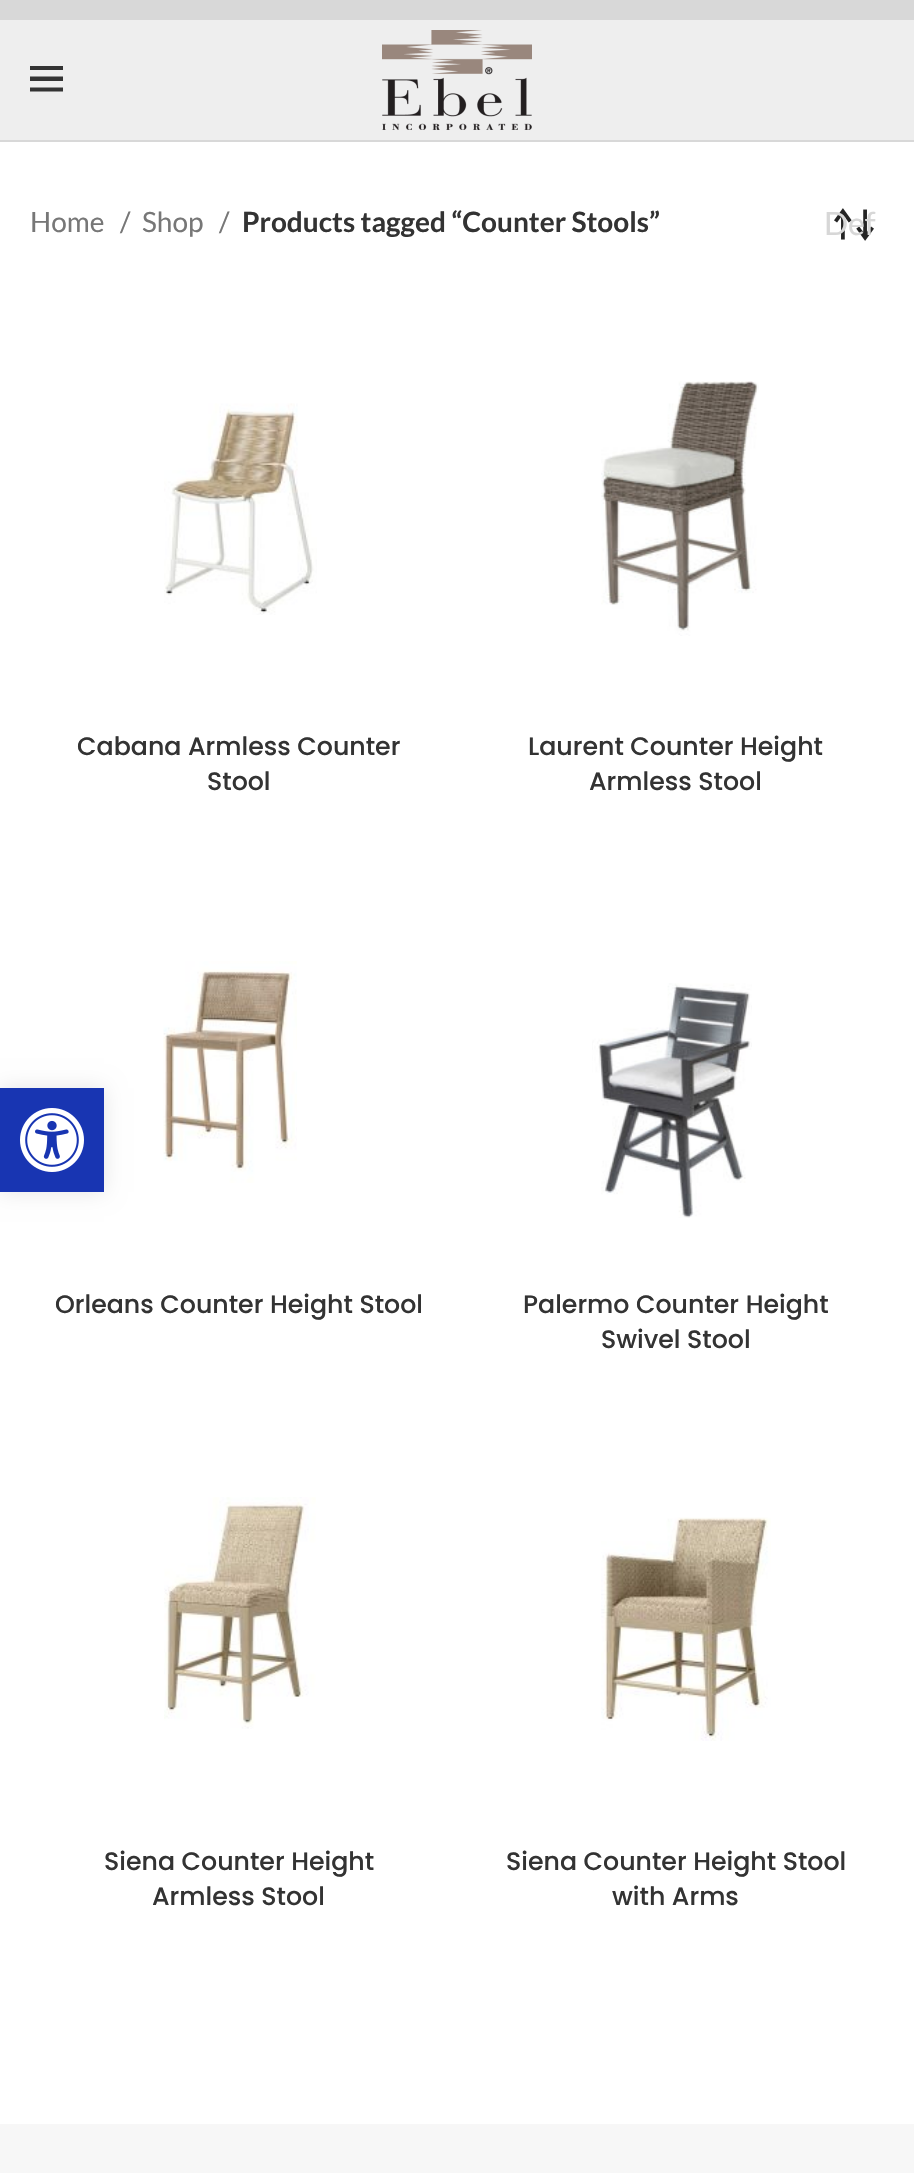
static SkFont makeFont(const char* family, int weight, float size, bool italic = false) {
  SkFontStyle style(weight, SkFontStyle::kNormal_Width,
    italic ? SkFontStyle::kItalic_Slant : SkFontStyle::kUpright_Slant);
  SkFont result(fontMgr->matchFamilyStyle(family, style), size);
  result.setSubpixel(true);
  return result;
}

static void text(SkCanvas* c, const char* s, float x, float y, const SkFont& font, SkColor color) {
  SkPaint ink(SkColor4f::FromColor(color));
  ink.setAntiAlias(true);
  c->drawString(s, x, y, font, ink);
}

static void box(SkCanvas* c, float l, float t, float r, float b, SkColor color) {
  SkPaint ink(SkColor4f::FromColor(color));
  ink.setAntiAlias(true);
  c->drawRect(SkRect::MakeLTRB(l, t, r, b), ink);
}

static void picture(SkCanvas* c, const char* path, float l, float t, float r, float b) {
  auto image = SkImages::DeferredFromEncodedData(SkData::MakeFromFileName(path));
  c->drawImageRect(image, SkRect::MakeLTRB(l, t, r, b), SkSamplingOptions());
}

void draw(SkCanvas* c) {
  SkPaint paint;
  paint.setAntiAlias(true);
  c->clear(0xffffffff);
  box(c, 0, 0, 914, 20, 0xffd8d8d8);
  box(c, 0, 20, 914, 140, 0xffeeeeee);
  box(c, 0, 140, 914, 142, 0xffd8d8d8);
  paint.setColor(0xff333333);
  c->drawPath(SkPathBuilder().moveTo(30, 66).lineTo(63, 66).lineTo(63, 70).lineTo(30, 70).close().moveTo(30, 76.5f).lineTo(63, 76.5f).lineTo(63, 81).lineTo(30, 81).close().moveTo(30, 87.5f).lineTo(63, 87.5f).lineTo(63, 91.5f).lineTo(30, 91.5f).close().detach(), paint);
  picture(c, "img_01.png", 382, 30, 532, 130);
  SkFont face1 = makeFont("Lato", 400, 28);
  text(c, "Home", 30, 232, face1, 0xff777777);
  text(c, "/", 120, 232, face1, 0xff777777);
  text(c, "Shop", 142, 232, face1, 0xff777777);
  text(c, "/", 219, 232, face1, 0xff777777);
  SkFont face2 = makeFont("Lato", 700, 28);
  text(c, "Products tagged “Counter Stools”", 242, 232, face2, 0xff333333);
  picture(c, "img_02.png", 834, 208, 874, 241);
  SkFont face3 = makeFont("Lato", 400, 32);
  text(c, "Def", 824, 235, face3, 0xffd7d7d7);
  picture(c, "img_03.png", 164, 403, 317, 615);
  SkFont face4 = makeFont("Poppins", 500, 25.25f);
  text(c, "Cabana Armless Counter", 77, 755, face4, 0xff333333);
  text(c, "Stool", 207, 790, face4, 0xff333333);
  picture(c, "img_04.png", 601, 381, 759, 636);
  text(c, "Laurent Counter Height", 528, 755, face4, 0xff333333);
  text(c, "Armless Stool", 589, 790, face4, 0xff333333);
  picture(c, "img_05.png", 163, 961, 297, 1183);
  text(c, "Orleans Counter Height Stool", 55, 1313, face4, 0xff333333);
  picture(c, "img_06.png", 592, 983, 752, 1218);
  text(c, "Palermo Counter Height", 523, 1313, face4, 0xff333333);
  text(c, "Swivel Stool", 601, 1348, face4, 0xff333333);
  picture(c, "img_07.png", 164, 1497, 316, 1729);
  text(c, "Siena Counter Height", 104, 1870, face4, 0xff333333);
  text(c, "Armless Stool", 152, 1905, face4, 0xff333333);
  picture(c, "img_08.png", 601, 1517, 771, 1741);
  text(c, "Siena Counter Height Stool", 506, 1870, face4, 0xff333333);
  text(c, "with Arms", 612, 1905, face4, 0xff333333);
  box(c, 0, 2124, 914, 2173, 0xfff7f7f7);
  paint.setColor(0x1a000000);
  paint.setMaskFilter(SkMaskFilter::MakeBlur(kNormal_SkBlurStyle, 10));
  c->drawRect(SkRect::MakeLTRB(0, 1088, 104, 1192), paint);
  paint.setMaskFilter(nullptr);
  box(c, 0, 1088, 104, 1192, 0xff1835b2);
  picture(c, "img_09.png", 20, 1108, 84, 1172);
}
